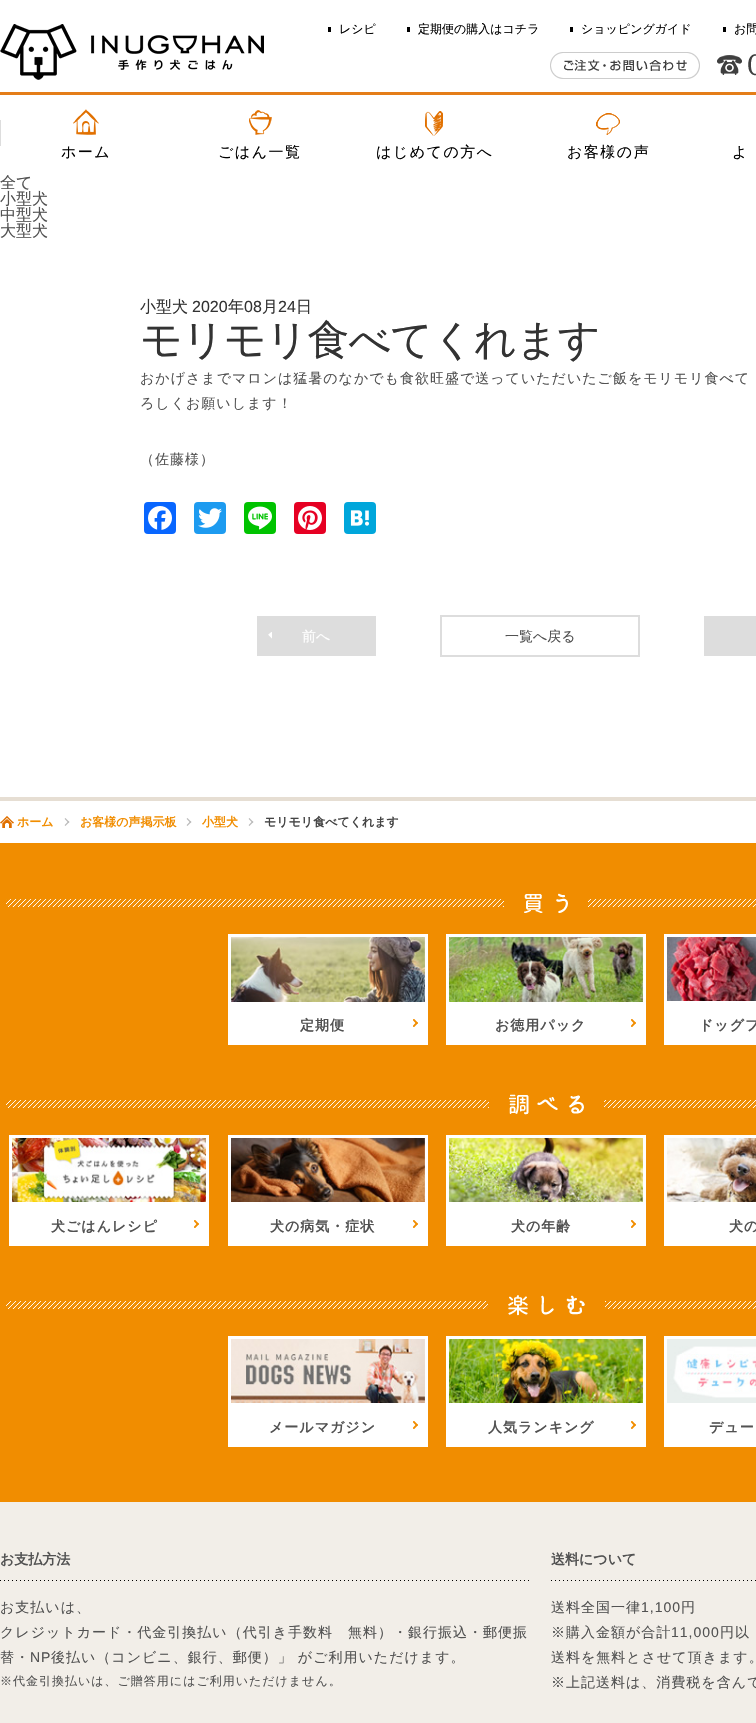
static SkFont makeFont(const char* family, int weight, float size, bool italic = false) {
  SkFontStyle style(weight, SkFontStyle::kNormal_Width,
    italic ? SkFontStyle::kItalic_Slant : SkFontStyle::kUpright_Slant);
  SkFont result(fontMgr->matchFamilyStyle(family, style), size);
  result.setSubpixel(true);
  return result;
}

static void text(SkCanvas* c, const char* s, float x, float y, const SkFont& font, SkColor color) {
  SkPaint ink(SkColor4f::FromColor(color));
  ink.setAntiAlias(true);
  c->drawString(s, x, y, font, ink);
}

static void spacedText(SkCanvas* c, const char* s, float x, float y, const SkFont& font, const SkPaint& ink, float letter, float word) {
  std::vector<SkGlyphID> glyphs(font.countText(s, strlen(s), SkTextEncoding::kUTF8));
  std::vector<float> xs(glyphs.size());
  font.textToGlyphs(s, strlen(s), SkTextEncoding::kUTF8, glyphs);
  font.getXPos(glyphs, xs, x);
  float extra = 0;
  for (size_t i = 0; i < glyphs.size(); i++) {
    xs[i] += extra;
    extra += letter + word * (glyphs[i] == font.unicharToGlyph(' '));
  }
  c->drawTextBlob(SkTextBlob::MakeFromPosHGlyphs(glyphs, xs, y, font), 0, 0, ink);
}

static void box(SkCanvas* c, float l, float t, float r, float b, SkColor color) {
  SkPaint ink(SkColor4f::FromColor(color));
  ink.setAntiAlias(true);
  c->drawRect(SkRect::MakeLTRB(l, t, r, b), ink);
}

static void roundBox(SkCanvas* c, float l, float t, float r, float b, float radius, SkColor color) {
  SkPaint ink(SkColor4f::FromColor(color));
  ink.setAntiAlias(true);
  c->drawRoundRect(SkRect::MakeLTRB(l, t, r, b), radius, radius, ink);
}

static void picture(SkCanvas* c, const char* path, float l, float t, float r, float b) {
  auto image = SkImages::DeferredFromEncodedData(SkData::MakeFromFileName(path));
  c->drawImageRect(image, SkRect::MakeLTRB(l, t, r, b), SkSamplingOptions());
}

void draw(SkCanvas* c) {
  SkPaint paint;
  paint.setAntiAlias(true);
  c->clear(0xffffffff);
  picture(c, "img_01.png", 0, 24, 264, 80);
  box(c, 328, 27, 331, 32, 0xff000000);
  SkFont face1 = makeFont("WenQuanYi Zen Hei", 500, 12);
  text(c, "レシピ", 339, 33, face1, 0xff000000);
  box(c, 407, 27, 410, 32, 0xff000000);
  text(c, "定期便の購入はコチラ", 418, 33, face1, 0xff000000);
  box(c, 570, 27, 573, 32, 0xff000000);
  text(c, "ショッピングガイド", 581, 33, face1, 0xff000000);
  box(c, 723, 27, 726, 32, 0xff000000);
  text(c, "お問", 734, 33, face1, 0xff000000);
  picture(c, "img_02.png", 550, 52, 700, 79);
  picture(c, "img_03.png", 717, 54, 756, 76);
  box(c, 0, 92, 756, 95, 0xffe47d18);
  box(c, 0, 120, 1, 146, 0xffdddddd);
  picture(c, "img_04.png", 73, 109, 99, 135);
  SkFont face2 = makeFont("WenQuanYi Zen Hei", 500, 15);
  paint.setColor(0xff000000);
  spacedText(c, "ホーム", 61, 157, face2, paint, 1.5f, 0);
  picture(c, "img_05.png", 249, 110, 272, 135);
  spacedText(c, "ごはん一覧", 218, 157, face2, paint, 1.5f, 0);
  picture(c, "img_06.png", 425, 111, 443, 136);
  spacedText(c, "はじめての方へ", 376, 157, face2, paint, 1.5f, 0);
  picture(c, "img_07.png", 596, 113, 620, 135);
  spacedText(c, "お客様の声", 567, 157, face2, paint, 1.5f, 0);
  spacedText(c, "よ", 732, 157, face2, paint, 1.5f, 0);
  SkFont face3 = makeFont("WenQuanYi Zen Hei", 500, 16);
  text(c, "全て", 0, 188, face3, 0xff525252);
  text(c, "小型犬", 0, 204, face3, 0xff525252);
  text(c, "中型犬", 0, 220, face3, 0xff525252);
  text(c, "大型犬", 0, 236, face3, 0xff525252);
  text(c, "小型犬", 140, 312, face3, 0xff333333);
  SkFont face4 = makeFont("Liberation Sans", 400, 16);
  text(c, "2020", 192, 312, face4, 0xff333333);
  text(c, "年", 228, 312, face3, 0xff333333);
  text(c, "08", 244, 312, face4, 0xff333333);
  text(c, "月", 262, 312, face3, 0xff333333);
  text(c, "24", 278, 312, face4, 0xff333333);
  text(c, "日", 296, 312, face3, 0xff333333);
  SkFont face5 = makeFont("WenQuanYi Zen Hei", 500, 41.9f);
  paint.setColor(0xff333333);
  spacedText(c, "モリモリ食べてくれます", 140, 354, face5, paint, -1, 0);
  SkFont face6 = makeFont("WenQuanYi Zen Hei", 500, 14);
  paint.setColor(0xff525252);
  spacedText(c, "おかげさまでマロンは猛暑のなかでも食欲旺盛で送っていただいたご飯をモリモリ食べて", 140, 383, face6, paint, 1, 0);
  spacedText(c, "ろしくお願いします！", 140, 408, face6, paint, 1, 0);
  spacedText(c, "（佐藤様）", 140, 464, face6, paint, 1, 0);
  roundBox(c, 144, 502, 176, 534, 4, 0xff0866ff);
  picture(c, "img_08.png", 148, 506, 172, 530);
  roundBox(c, 194, 502, 226, 534, 4, 0xff1d9bf0);
  picture(c, "img_09.png", 198, 508, 222, 528);
  roundBox(c, 244, 502, 276, 534, 4, 0xff00c300);
  picture(c, "img_10.png", 248, 506, 272, 530);
  roundBox(c, 294, 502, 326, 534, 4, 0xffe60023);
  picture(c, "img_11.png", 298, 506, 322, 530);
  roundBox(c, 344, 502, 376, 534, 4, 0xff00a6db);
  picture(c, "img_12.png", 350, 510, 369, 526);
  box(c, 257, 616, 376, 656, 0xffdddddd);
  picture(c, "img_13.png", 268, 632, 272, 639);
  text(c, "前へ", 302, 641, face6, 0xffffffff);
  paint.setStyle(SkPaint::kStroke_Style);
  paint.setStrokeWidth(2);
  paint.setColor(0xffdddddd);
  c->drawRect(SkRect::MakeLTRB(441, 616, 639, 656), paint);
  text(c, "一覧へ戻る", 505, 641, face6, 0xff525252);
  box(c, 704, 616, 756, 656, 0xffdddddd);
  box(c, 0, 797, 756, 801, 0xffe6ded3);
  picture(c, "img_14.png", 0, 816, 14, 828);
  SkFont face7 = makeFont("WenQuanYi Zen Hei", 700, 12);
  text(c, "ホーム", 17, 826, face7, 0xfff18d00);
  picture(c, "img_15.png", 64, 818, 70, 826);
  text(c, "お客様の声掲示板", 80, 826, face7, 0xfff18d00);
  picture(c, "img_15.png", 186, 818, 192, 826);
  text(c, "小型犬", 202, 826, face7, 0xfff18d00);
  picture(c, "img_15.png", 248, 818, 254, 826);
  text(c, "モリモリ食べてくれます", 264, 826, face7, 0xff444444);
  box(c, 0, 843, 756, 1502, 0xfff18d00);
  picture(c, "img_16.png", 6, 899, 756, 907);
  box(c, 504, 899, 588, 907, 0xfff18d00);
  picture(c, "img_17.png", 524, 893, 568, 913);
  box(c, 228, 934, 428, 1045, 0xffffffff);
  picture(c, "img_18.png", 231, 937, 425, 1002);
  picture(c, "img_19.png", 413, 1019, 418, 1027);
  SkFont face8 = makeFont("WenQuanYi Zen Hei", 700, 14);
  paint.setStyle(SkPaint::kFill_Style);
  paint.setColor(0xff525252);
  spacedText(c, "定期便", 300, 1030, face8, paint, 1, 0);
  box(c, 446, 934, 646, 1045, 0xffffffff);
  picture(c, "img_20.png", 449, 937, 643, 1002);
  picture(c, "img_19.png", 631, 1019, 636, 1027);
  spacedText(c, "お徳用パック", 495, 1030, face8, paint, 1, 0);
  box(c, 664, 934, 756, 1045, 0xffffffff);
  picture(c, "img_21.png", 667, 937, 756, 1001);
  spacedText(c, "ドッグフ", 699, 1030, face8, paint, 1, 0);
  picture(c, "img_16.png", 6, 1100, 756, 1108);
  box(c, 489, 1100, 604, 1108, 0xfff18d00);
  picture(c, "img_22.png", 509, 1094, 584, 1115);
  box(c, 9, 1135, 209, 1246, 0xffffffff);
  picture(c, "img_23.png", 12, 1138, 206, 1202);
  picture(c, "img_19.png", 194, 1220, 199, 1228);
  spacedText(c, "犬ごはんレシピ", 51, 1231, face8, paint, 1, 0);
  box(c, 228, 1135, 428, 1246, 0xffffffff);
  picture(c, "img_24.png", 231, 1138, 425, 1202);
  picture(c, "img_19.png", 413, 1220, 418, 1228);
  spacedText(c, "犬の病気・症状", 270, 1231, face8, paint, 1, 0);
  box(c, 446, 1135, 646, 1246, 0xffffffff);
  picture(c, "img_25.png", 449, 1138, 643, 1202);
  picture(c, "img_19.png", 631, 1220, 636, 1228);
  spacedText(c, "犬の年齢", 511, 1231, face8, paint, 1, 0);
  box(c, 664, 1135, 756, 1246, 0xffffffff);
  picture(c, "img_26.png", 667, 1138, 756, 1202);
  spacedText(c, "犬の", 729, 1231, face8, paint, 1, 0);
  picture(c, "img_16.png", 6, 1301, 756, 1309);
  box(c, 488, 1301, 605, 1309, 0xfff18d00);
  picture(c, "img_27.png", 508, 1295, 585, 1316);
  box(c, 228, 1336, 428, 1447, 0xffffffff);
  picture(c, "img_28.png", 231, 1339, 425, 1403);
  picture(c, "img_19.png", 413, 1421, 418, 1429);
  spacedText(c, "メールマガジン", 269, 1432, face8, paint, 1, 0);
  box(c, 446, 1336, 646, 1447, 0xffffffff);
  picture(c, "img_29.png", 449, 1339, 643, 1403);
  picture(c, "img_19.png", 631, 1421, 636, 1429);
  spacedText(c, "人気ランキング", 488, 1432, face8, paint, 1, 0);
  box(c, 664, 1336, 756, 1447, 0xffffffff);
  picture(c, "img_30.png", 667, 1339, 756, 1403);
  spacedText(c, "デュー", 709, 1432, face8, paint, 1, 0);
  box(c, 0, 1502, 756, 1723, 0xfff2eee8);
  picture(c, "img_31.png", 0, 1580, 529, 1581);
  text(c, "お支払方法", 0, 1564, face8, 0xff525252);
  spacedText(c, "お支払いは、", 0, 1612, face6, paint, 1, 0);
  spacedText(c, "クレジットカード・代金引換払い（代引き手数料　無料）・銀行振込・郵便振", 0, 1637, face6, paint, 1, 0);
  spacedText(c, "替・", 0, 1662, face6, paint, 1, 0);
  SkFont face9 = makeFont("Liberation Sans", 400, 14);
  spacedText(c, "NP", 30, 1662, face9, paint, 1, 0);
  spacedText(c, "後払い（コンビニ、銀行、郵便）」 がご利用いただけます。", 51, 1662, face6, paint, 1, 0);
  spacedText(c, "※代金引換払いは、ご贈答用にはご利用いただけません。", 0, 1685, face1, paint, 1, 0);
  picture(c, "img_32.png", 551, 1580, 756, 1581);
  text(c, "送料について", 551, 1564, face8, 0xff525252);
  spacedText(c, "送料全国一律", 551, 1612, face6, paint, 1, 0);
  spacedText(c, "1,100", 641, 1612, face9, paint, 1, 0);
  spacedText(c, "円", 681, 1612, face6, paint, 1, 0);
  spacedText(c, "※購入金額が合計", 551, 1637, face6, paint, 1, 0);
  spacedText(c, "11,000", 671, 1637, face9, paint, 1, 0);
  spacedText(c, "円以", 720, 1637, face6, paint, 1, 0);
  spacedText(c, "送料を無料とさせて頂きます。", 551, 1662, face6, paint, 1, 0);
  spacedText(c, "※上記送料は、消費税を含んで", 551, 1687, face6, paint, 1, 0);
}
